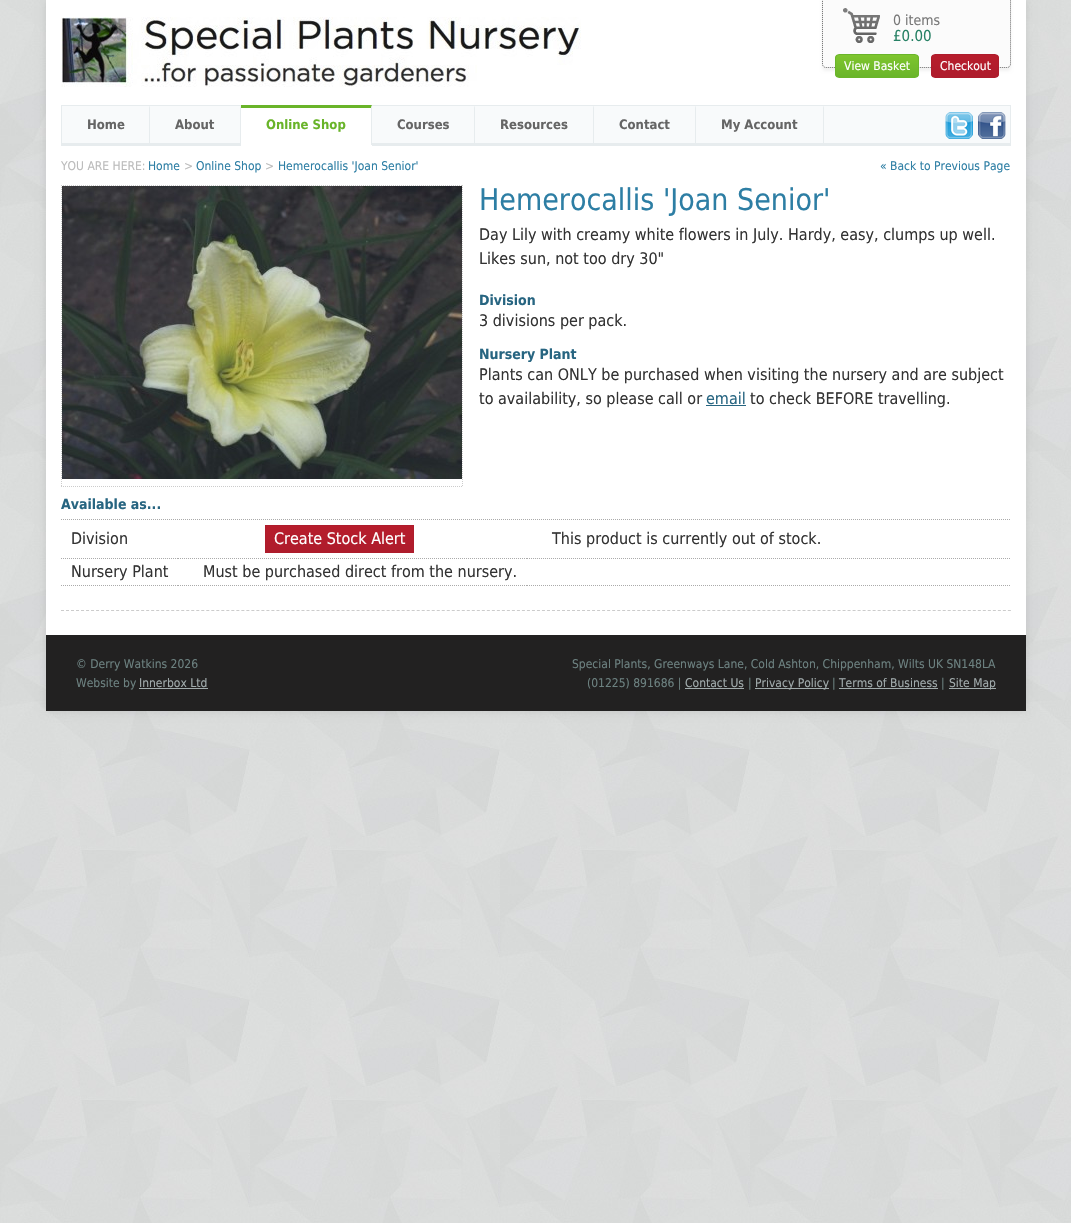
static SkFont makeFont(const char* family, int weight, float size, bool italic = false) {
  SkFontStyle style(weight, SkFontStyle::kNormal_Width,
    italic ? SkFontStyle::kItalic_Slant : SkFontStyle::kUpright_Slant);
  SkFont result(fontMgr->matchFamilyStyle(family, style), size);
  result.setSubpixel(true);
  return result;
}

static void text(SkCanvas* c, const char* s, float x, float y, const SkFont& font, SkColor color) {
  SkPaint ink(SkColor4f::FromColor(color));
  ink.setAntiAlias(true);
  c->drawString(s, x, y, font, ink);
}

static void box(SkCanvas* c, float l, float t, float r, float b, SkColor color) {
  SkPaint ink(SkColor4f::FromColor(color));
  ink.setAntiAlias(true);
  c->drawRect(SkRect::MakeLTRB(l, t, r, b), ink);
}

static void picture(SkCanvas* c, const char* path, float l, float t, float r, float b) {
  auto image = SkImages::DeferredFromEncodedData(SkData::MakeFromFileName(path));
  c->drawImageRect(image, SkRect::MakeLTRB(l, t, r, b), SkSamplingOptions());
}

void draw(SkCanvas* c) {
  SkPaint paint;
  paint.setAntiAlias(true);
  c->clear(0xffffffff);
  picture(c, "img_01.png", 0, 0, 1071, 1223);
  paint.setColor(0x1a000000);
  paint.setMaskFilter(SkMaskFilter::MakeBlur(kNormal_SkBlurStyle, 4));
  c->drawRect(SkRect::MakeLTRB(46, 0, 1026, 711), paint);
  paint.setMaskFilter(nullptr);
  box(c, 46, 0, 1026, 635, 0xffffffff);
  picture(c, "img_02.png", 61, 17, 581, 87);
  paint.setColor(0x0d000000);
  paint.setMaskFilter(SkMaskFilter::MakeBlur(kNormal_SkBlurStyle, 1.5f));
  c->drawRoundRect(SkRect::MakeLTRB(822, -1, 1011, 71), 4, 4, paint);
  paint.setMaskFilter(nullptr);
  paint.setColor(0xfffbfbfb);
  c->drawPath(SkPathBuilder().moveTo(822, 0).lineTo(1011, 0).lineTo(1011, 64).cubicTo(1011, 66, 1009, 68, 1007, 68).lineTo(826, 68).cubicTo(824, 68, 822, 66, 822, 64).close().detach(), paint);
  picture(c, "img_03.png", 843, 8, 880, 43);
  paint.setStyle(SkPaint::kStroke_Style);
  paint.setStrokeWidth(1);
  paint.setColor(0xff666666);
  paint.setPathEffect(SkDashPathEffect::Make({{1, 1}}, 0));
  c->drawPath(SkPathBuilder().moveTo(826, -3.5f).lineTo(1007, -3.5f).cubicTo(1009, -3.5f, 1010.5f, -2, 1010.5f, 0).lineTo(1010.5f, 64).cubicTo(1010.5f, 66, 1009, 67.5f, 1007, 67.5f).lineTo(826, 67.5f).cubicTo(824, 67.5f, 822.5f, 66, 822.5f, 64).lineTo(822.5f, 0).cubicTo(822.5f, -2, 824, -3.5f, 826, -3.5f).close().detach(), paint);
  paint.setPathEffect(nullptr);
  SkFont face1 = makeFont("DejaVu Sans", 400, 14);
  text(c, "0 items", 893, 25, face1, 0xff777777);
  SkFont face2 = makeFont("DejaVu Sans", 400, 15);
  text(c, "£0.00", 893, 41, face2, 0xff278165);
  c->save();
  c->clipPath(SkPathBuilder().moveTo(839, 54).lineTo(915, 54).cubicTo(917, 54, 919, 56, 919, 58).lineTo(919, 74).cubicTo(919, 76, 917, 78, 915, 78).lineTo(839, 78).cubicTo(837, 78, 835, 76, 835, 74).lineTo(835, 58).cubicTo(835, 56, 837, 54, 839, 54).close().detach(), true);
  paint.setStyle(SkPaint::kFill_Style);
  {
    const SkColor colors[] = {0xff7ec52e, 0xff6ab52a};
    const float stops[] = {0, 1};
    const SkPoint ends[] = {{877, 55}, {877, 77}};
    paint.setShader(SkGradientShader::MakeLinear(ends, colors, stops, 2, SkTileMode::kClamp));
    paint.setAlpha(255);
  }
  c->drawRect(SkRect::MakeLTRB(835, 55, 919, 77), paint);
  c->restore();
  paint.setStyle(SkPaint::kStroke_Style);
  paint.setShader(nullptr);
  paint.setColor(0xff6ab52a);
  c->drawRoundRect(SkRect::MakeLTRB(835.5f, 54.5f, 918.5f, 77.5f), 3.5f, 3.5f, paint);
  SkFont face3 = makeFont("DejaVu Sans", 400, 12);
  text(c, "View Basket", 844, 70, face3, 0xffffffff);
  c->save();
  c->clipPath(SkPathBuilder().moveTo(935, 54).lineTo(995, 54).cubicTo(997, 54, 999, 56, 999, 58).lineTo(999, 74).cubicTo(999, 76, 997, 78, 995, 78).lineTo(935, 78).cubicTo(933, 78, 931, 76, 931, 74).lineTo(931, 58).cubicTo(931, 56, 933, 54, 935, 54).close().detach(), true);
  paint.setStyle(SkPaint::kFill_Style);
  {
    const SkColor colors[] = {0xffb71d2c, 0xffae1c2c};
    const float stops[] = {0, 1};
    const SkPoint ends[] = {{965, 55}, {965, 77}};
    paint.setShader(SkGradientShader::MakeLinear(ends, colors, stops, 2, SkTileMode::kClamp));
    paint.setAlpha(255);
  }
  c->drawRect(SkRect::MakeLTRB(931, 55, 999, 77), paint);
  c->restore();
  paint.setStyle(SkPaint::kStroke_Style);
  paint.setShader(nullptr);
  paint.setColor(0xffae1c2c);
  c->drawRoundRect(SkRect::MakeLTRB(931.5f, 54.5f, 998.5f, 77.5f), 3.5f, 3.5f, paint);
  text(c, "Checkout", 940, 70, face3, 0xffffffff);
  box(c, 62, 106, 1010, 143, 0xfff8fafb);
  box(c, 61, 105, 1011, 106, 0xffe7ecee);
  box(c, 1010, 105, 1011, 146, 0xffe7ecee);
  box(c, 61, 143, 1011, 146, 0xffe7ecee);
  box(c, 61, 105, 62, 146, 0xffe7ecee);
  paint.setStyle(SkPaint::kFill_Style);
  paint.setColor(0xffe7ecee);
  c->drawPath(SkPathBuilder().moveTo(150, 105).lineTo(150, 145).lineTo(149, 145).lineTo(149, 108).close().detach(), paint);
  SkFont face4 = makeFont("DejaVu Sans", 700, 13);
  text(c, "Home", 87, 129, face4, 0xff656565);
  c->drawPath(SkPathBuilder().moveTo(241, 105).lineTo(241, 145).lineTo(240, 145).lineTo(240, 108).close().detach(), paint);
  text(c, "About", 175, 129, face4, 0xff656565);
  box(c, 241, 105, 372, 145, 0xffffffff);
  paint.setColor(0xff69b429);
  c->drawPath(SkPathBuilder().moveTo(241, 105).lineTo(372, 105).lineTo(371, 108).lineTo(241, 108).close().detach(), paint);
  paint.setColor(0xffe7ecee);
  c->drawPath(SkPathBuilder().moveTo(372, 105).lineTo(372, 146).lineTo(371, 145).lineTo(371, 108).close().detach(), paint);
  box(c, 241, 145, 372, 146, 0xffffffff);
  text(c, "Online Shop", 266, 129, face4, 0xff69b429);
  c->drawPath(SkPathBuilder().moveTo(475, 105).lineTo(475, 145).lineTo(474, 145).lineTo(474, 108).close().detach(), paint);
  text(c, "Courses", 397, 129, face4, 0xff656565);
  c->drawPath(SkPathBuilder().moveTo(594, 105).lineTo(594, 145).lineTo(593, 145).lineTo(593, 108).close().detach(), paint);
  text(c, "Resources", 500, 129, face4, 0xff656565);
  c->drawPath(SkPathBuilder().moveTo(696, 105).lineTo(696, 145).lineTo(695, 145).lineTo(695, 108).close().detach(), paint);
  text(c, "Contact", 619, 129, face4, 0xff656565);
  c->drawPath(SkPathBuilder().moveTo(824, 105).lineTo(824, 145).lineTo(823, 145).lineTo(823, 108).close().detach(), paint);
  text(c, "My Account", 721, 129, face4, 0xff656565);
  picture(c, "img_04.png", 945, 112, 973, 139);
  picture(c, "img_05.png", 978, 112, 1006, 139);
  text(c, "YOU ARE HERE:", 61, 170, face3, 0xffbbbbbb);
  text(c, "Home", 148, 170, face3, 0xff2d7ea4);
  text(c, ">", 184, 170, face3, 0xffbbbbbb);
  text(c, "Online Shop", 196, 170, face3, 0xff2d7ea4);
  text(c, ">", 265, 170, face3, 0xffbbbbbb);
  text(c, "Hemerocallis 'Joan Senior'", 278, 170, face3, 0xff2d7ea4);
  text(c, "« Back to Previous Page", 880, 170, face3, 0xff2d7ea4);
  paint.setStyle(SkPaint::kStroke_Style);
  paint.setColor(0xffcccccc);
  paint.setPathEffect(SkDashPathEffect::Make({{3, 2.01f}}, 0));
  c->drawPath(SkPathBuilder().moveTo(61, 610.5f).lineTo(1011, 610.5f).detach(), paint);
  paint.setPathEffect(nullptr);
  paint.setPathEffect(SkDashPathEffect::Make({{1, 1}}, 0));
  c->drawPath(SkPathBuilder().moveTo(61, 185.5f).lineTo(463, 185.5f).detach(), paint);
  paint.setPathEffect(nullptr);
  paint.setPathEffect(SkDashPathEffect::Make({{1, 1}}, 0));
  c->drawPath(SkPathBuilder().moveTo(462.5f, 185).lineTo(462.5f, 487).detach(), paint);
  paint.setPathEffect(nullptr);
  paint.setPathEffect(SkDashPathEffect::Make({{1, 1}}, 0));
  c->drawPath(SkPathBuilder().moveTo(61, 486.5f).lineTo(463, 486.5f).detach(), paint);
  paint.setPathEffect(nullptr);
  paint.setPathEffect(SkDashPathEffect::Make({{1, 1}}, 0));
  c->drawPath(SkPathBuilder().moveTo(61.5f, 185).lineTo(61.5f, 487).detach(), paint);
  paint.setPathEffect(nullptr);
  picture(c, "img_06.png", 62, 186, 462, 479);
  SkFont face5 = makeFont("DejaVu Sans", 400, 30);
  text(c, "Hemerocallis 'Joan Senior'", 479, 210, face5, 0xff2d7ea4);
  SkFont face6 = makeFont("DejaVu Sans", 400, 16);
  text(c, "Day Lily with creamy white flowers in July. Hardy, easy, clumps up well.", 479, 240, face6, 0xff333333);
  text(c, "Likes sun, not too dry 30\"", 479, 264, face6, 0xff333333);
  SkFont face7 = makeFont("DejaVu Sans", 700, 14);
  text(c, "Division", 479, 305, face7, 0xff276581);
  text(c, "3 divisions per pack.", 479, 326, face6, 0xff333333);
  text(c, "Nursery Plant", 479, 359, face7, 0xff276581);
  text(c, "Plants can ONLY be purchased when visiting the nursery and are subject", 479, 380, face6, 0xff333333);
  text(c, "to availability, so please call or", 479, 404, face6, 0xff333333);
  text(c, "email", 706, 404, face6, 0xff276581);
  box(c, 706, 405, 746, 406, 0xff276581);
  text(c, "to check BEFORE travelling.", 750, 404, face6, 0xff333333);
  text(c, "Available as...", 61, 509, face7, 0xff276581);
  paint.setColor(0xffaaaaaa);
  paint.setPathEffect(SkDashPathEffect::Make({{1, 1}}, 0));
  c->drawPath(SkPathBuilder().moveTo(61, 519.5f).lineTo(1011, 519.5f).detach(), paint);
  paint.setPathEffect(nullptr);
  paint.setPathEffect(SkDashPathEffect::Make({{1, 1}}, 0));
  c->drawPath(SkPathBuilder().moveTo(61, 558.5f).lineTo(178, 558.5f).detach(), paint);
  paint.setPathEffect(nullptr);
  text(c, "Division", 71, 544, face6, 0xff333333);
  paint.setPathEffect(SkDashPathEffect::Make({{1, 1}}, 0));
  c->drawPath(SkPathBuilder().moveTo(240, 558.5f).lineTo(527, 558.5f).detach(), paint);
  paint.setPathEffect(nullptr);
  paint.setStyle(SkPaint::kFill_Style);
  {
    const SkColor colors[] = {0xffb71d2c, 0xffae1c2c};
    const float stops[] = {0, 1};
    const SkPoint ends[] = {{340, 526}, {340, 552}};
    paint.setShader(SkGradientShader::MakeLinear(ends, colors, stops, 2, SkTileMode::kClamp));
    paint.setAlpha(255);
  }
  c->drawRect(SkRect::MakeLTRB(266, 526, 413, 552), paint);
  paint.setStyle(SkPaint::kStroke_Style);
  paint.setShader(nullptr);
  paint.setColor(0xffae1c2c);
  c->drawRect(SkRect::MakeLTRB(265.5f, 525.5f, 413.5f, 552.5f), paint);
  text(c, "Create Stock Alert", 274, 544, face6, 0xffffffff);
  paint.setColor(0xffaaaaaa);
  paint.setPathEffect(SkDashPathEffect::Make({{1, 1}}, 0));
  c->drawPath(SkPathBuilder().moveTo(527, 558.5f).lineTo(1011, 558.5f).detach(), paint);
  paint.setPathEffect(nullptr);
  text(c, "This product is currently out of stock.", 552, 544, face6, 0xff333333);
  paint.setPathEffect(SkDashPathEffect::Make({{1, 1}}, 0));
  c->drawPath(SkPathBuilder().moveTo(178, 558.5f).lineTo(240, 558.5f).detach(), paint);
  paint.setPathEffect(nullptr);
  paint.setPathEffect(SkDashPathEffect::Make({{1, 1}}, 0));
  c->drawPath(SkPathBuilder().moveTo(61, 585.5f).lineTo(178, 585.5f).detach(), paint);
  paint.setPathEffect(nullptr);
  text(c, "Nursery Plant", 71, 577, face6, 0xff333333);
  paint.setPathEffect(SkDashPathEffect::Make({{1, 1}}, 0));
  c->drawPath(SkPathBuilder().moveTo(178, 585.5f).lineTo(527, 585.5f).detach(), paint);
  paint.setPathEffect(nullptr);
  text(c, "Must be purchased direct from the nursery.", 203, 577, face6, 0xff333333);
  paint.setPathEffect(SkDashPathEffect::Make({{1, 1}}, 0));
  c->drawPath(SkPathBuilder().moveTo(527, 585.5f).lineTo(1011, 585.5f).detach(), paint);
  paint.setPathEffect(nullptr);
  box(c, 46, 635, 1026, 711, 0xff222121);
  text(c, "© Derry Watkins 2026", 76, 668, face3, 0xff6c8180);
  text(c, "Website by", 76, 687, face3, 0xff6c8180);
  text(c, "Innerbox Ltd", 139, 687, face3, 0xffa1abac);
  box(c, 139, 688, 208, 689, 0xffa1abac);
  text(c, "Special Plants, Greenways Lane, Cold Ashton, Chippenham, Wilts UK SN148LA", 572, 668, face3, 0xff6c8180);
  text(c, "(01225) 891686 |", 587, 687, face3, 0xff6c8180);
  text(c, "Contact Us", 685, 687, face3, 0xffa1abac);
  box(c, 685, 688, 744, 689, 0xffa1abac);
  text(c, "|", 748, 687, face3, 0xff6c8180);
  box(c, 755, 688, 829, 689, 0xffa1abac);
  text(c, "Privacy Policy", 755, 687, face3, 0xffa1abac);
  text(c, "|", 832, 687, face3, 0xff6c8180);
  text(c, "Terms of Business", 839, 687, face3, 0xffa1abac);
  box(c, 839, 688, 938, 689, 0xffa1abac);
  text(c, "|", 941, 687, face3, 0xff6c8180);
  box(c, 949, 688, 996, 689, 0xffa1abac);
  text(c, "Site Map", 949, 687, face3, 0xffa1abac);
}
